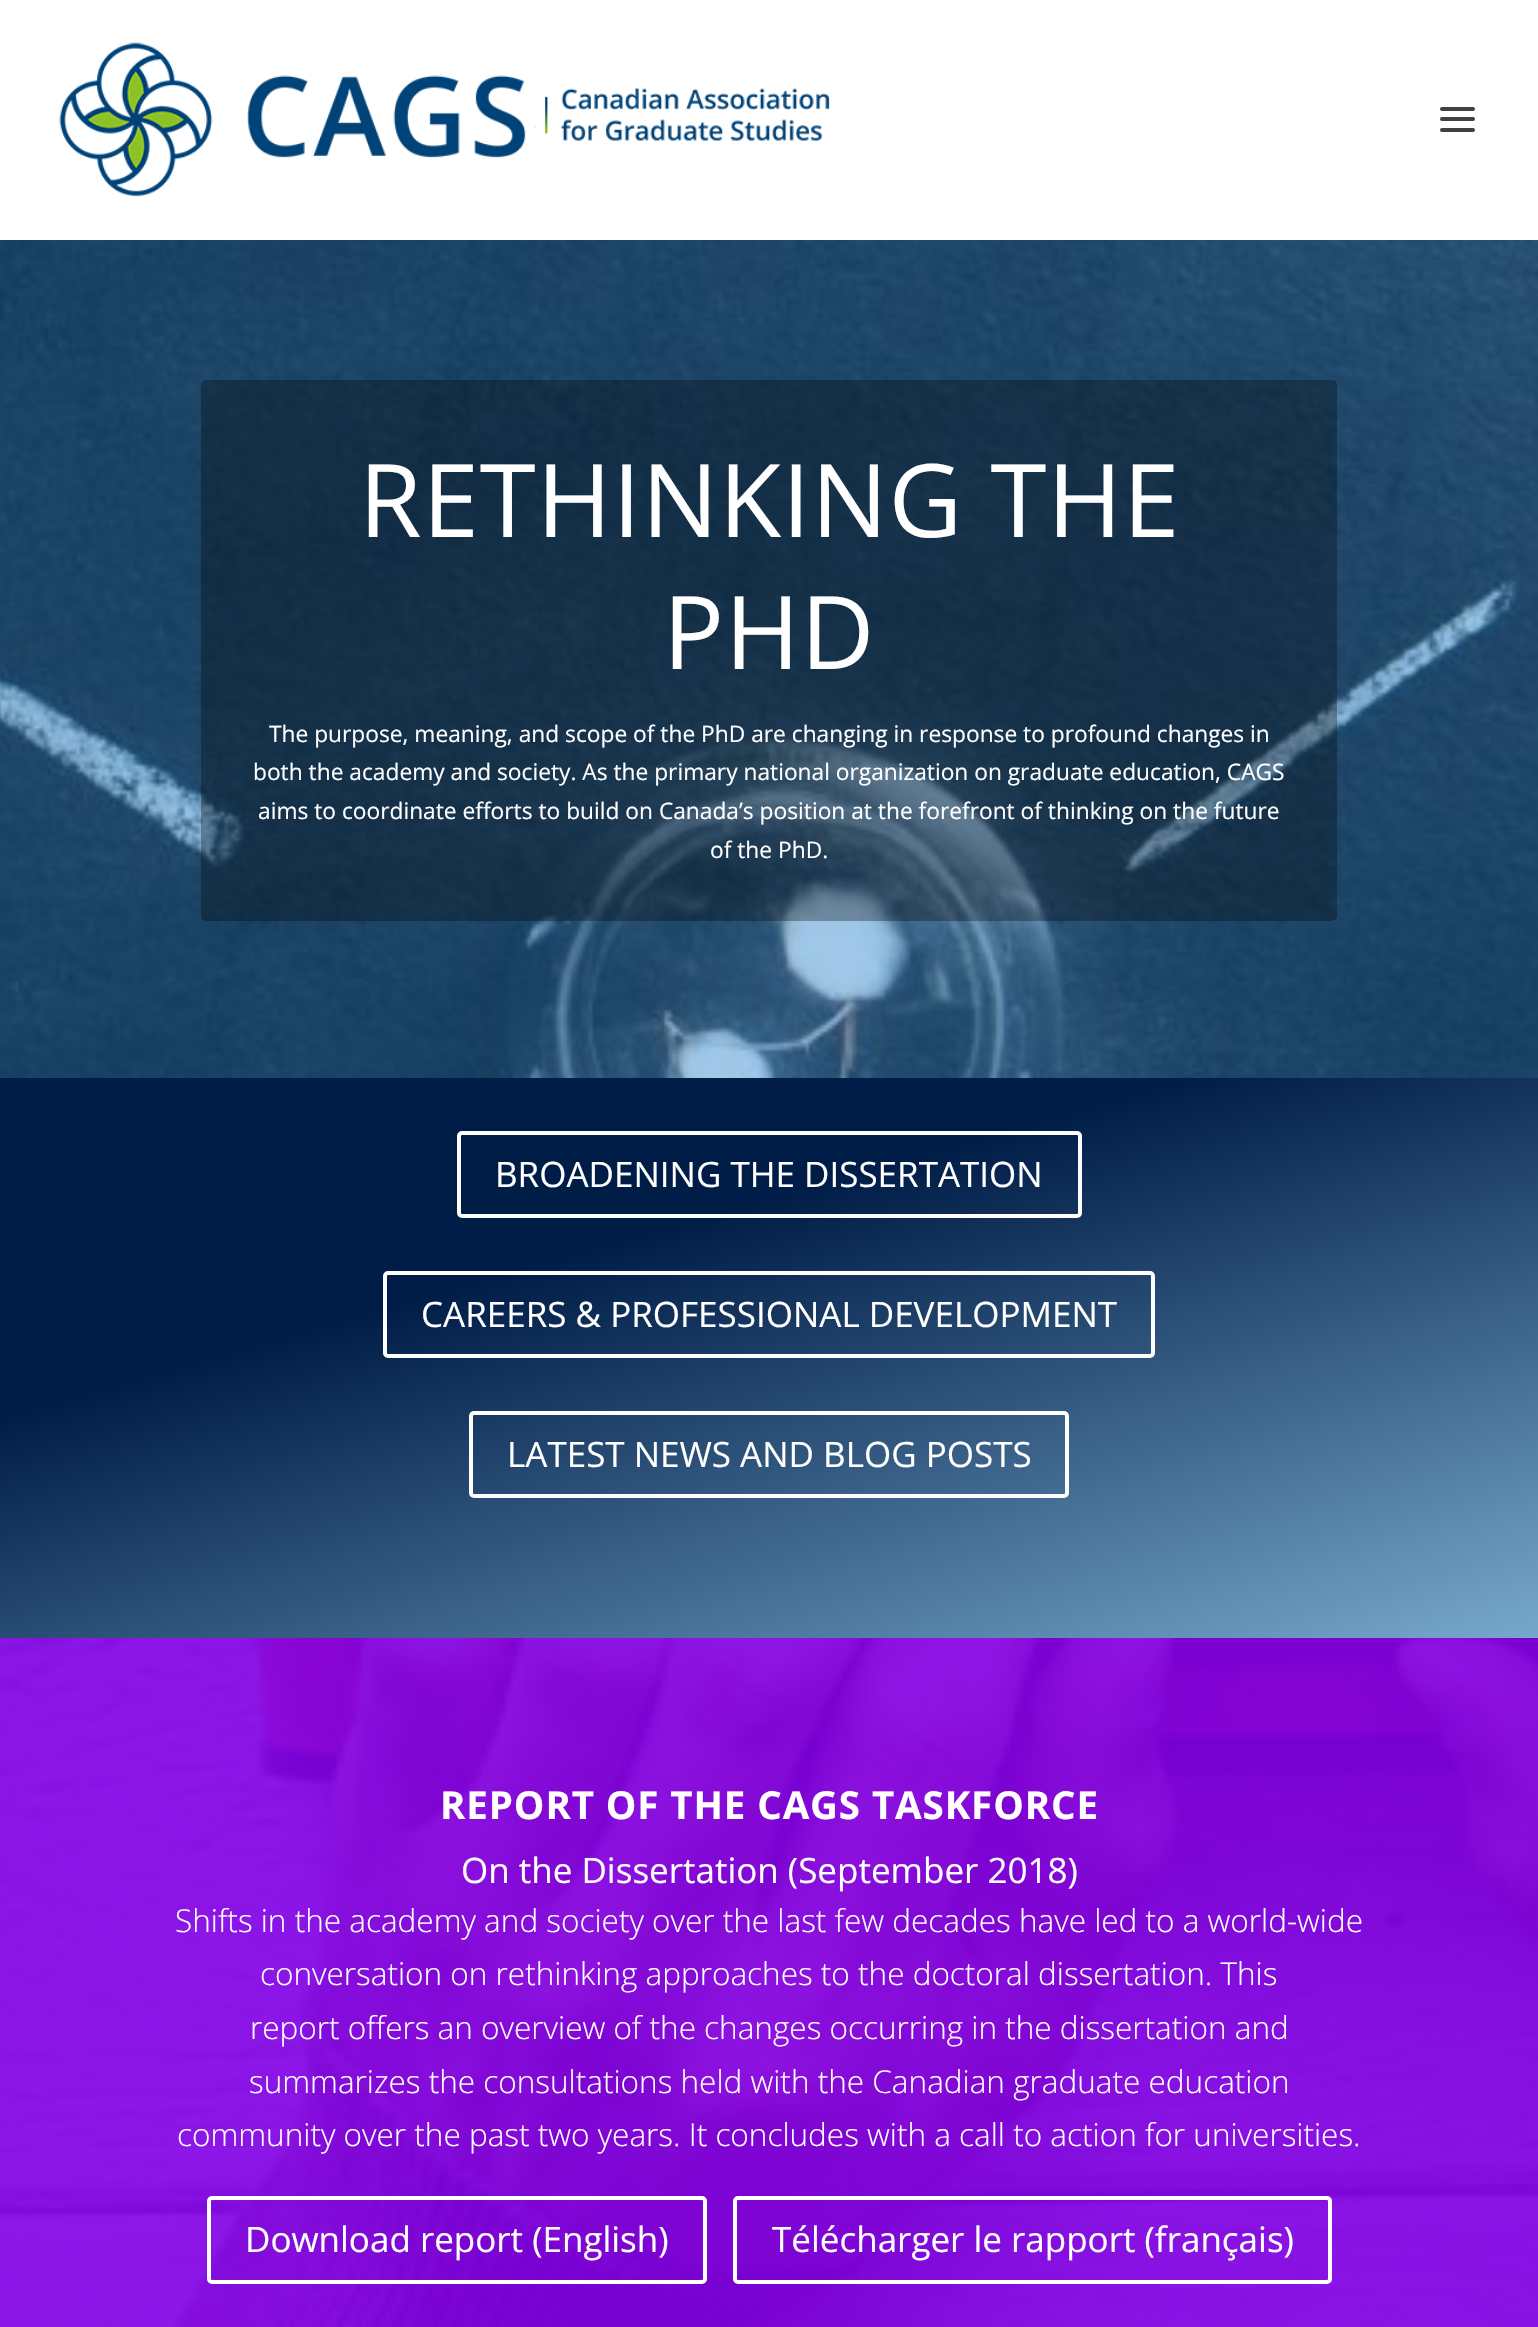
static SkFont makeFont(const char* family, int weight, float size, bool italic = false) {
  SkFontStyle style(weight, SkFontStyle::kNormal_Width,
    italic ? SkFontStyle::kItalic_Slant : SkFontStyle::kUpright_Slant);
  SkFont result(fontMgr->matchFamilyStyle(family, style), size);
  result.setSubpixel(true);
  return result;
}

static void text(SkCanvas* c, const char* s, float x, float y, const SkFont& font, SkColor color) {
  SkPaint ink(SkColor4f::FromColor(color));
  ink.setAntiAlias(true);
  c->drawString(s, x, y, font, ink);
}

static void spacedText(SkCanvas* c, const char* s, float x, float y, const SkFont& font, const SkPaint& ink, float letter, float word) {
  std::vector<SkGlyphID> glyphs(font.countText(s, strlen(s), SkTextEncoding::kUTF8));
  std::vector<float> xs(glyphs.size());
  font.textToGlyphs(s, strlen(s), SkTextEncoding::kUTF8, glyphs);
  font.getXPos(glyphs, xs, x);
  float extra = 0;
  for (size_t i = 0; i < glyphs.size(); i++) {
    xs[i] += extra;
    extra += letter + word * (glyphs[i] == font.unicharToGlyph(' '));
  }
  c->drawTextBlob(SkTextBlob::MakeFromPosHGlyphs(glyphs, xs, y, font), 0, 0, ink);
}

static void roundBox(SkCanvas* c, float l, float t, float r, float b, float radius, SkColor color) {
  SkPaint ink(SkColor4f::FromColor(color));
  ink.setAntiAlias(true);
  c->drawRoundRect(SkRect::MakeLTRB(l, t, r, b), radius, radius, ink);
}

static void picture(SkCanvas* c, const char* path, float l, float t, float r, float b) {
  auto image = SkImages::DeferredFromEncodedData(SkData::MakeFromFileName(path));
  c->drawImageRect(image, SkRect::MakeLTRB(l, t, r, b), SkSamplingOptions());
}

void draw(SkCanvas* c) {
  SkPaint paint;
  paint.setAntiAlias(true);
  c->clear(0xffffffff);
  picture(c, "img_01.png", 59, 42, 830, 197);
  roundBox(c, 1440, 107, 1475, 111, 2, 0xff404040);
  roundBox(c, 1440, 117, 1475, 121, 2, 0xff404040);
  roundBox(c, 1440, 128, 1475, 132, 2, 0xff404040);
  picture(c, "img_02.png", 0, 240, 1538, 1078);
  roundBox(c, 201, 380, 1337, 921, 5, 0x4d000000);
  SkFont face1 = makeFont("Open Sans", 400, 101.5f);
  paint.setColor(0xffffffff);
  spacedText(c, "RETHINKING THE", 359, 537, face1, paint, 0.9f, 0);
  spacedText(c, "PHD", 663, 669, face1, paint, 0.9f, 0);
  SkFont face2 = makeFont("Open Sans", 400, 22.75f);
  text(c, "The purpose, meaning, and scope of the PhD are changing in response to profound changes in", 269, 742, face2, 0xffffffff);
  text(c, "both the academy and society. As the primary national organization on graduate education, CAGS", 253, 780, face2, 0xffffffff);
  text(c, "aims to coordinate efforts to build on Canada’s position at the forefront of thinking on the future", 258, 819, face2, 0xffffffff);
  text(c, "of the PhD.", 710, 858, face2, 0xffffffff);
  {
    const SkColor colors[] = {0xff001d47, 0xff77a8cc};
    const float stops[] = {0.34f, 1};
    const SkPoint ends[] = {{637, 895}, {902, 1821}};
    paint.setShader(SkGradientShader::MakeLinear(ends, colors, stops, 2, SkTileMode::kClamp));
    paint.setAlpha(255);
  }
  c->drawRect(SkRect::MakeLTRB(0, 1078, 1538, 1638), paint);
  paint.setStyle(SkPaint::kStroke_Style);
  paint.setStrokeWidth(4);
  paint.setShader(nullptr);
  paint.setColor(0xffffffff);
  c->drawRoundRect(SkRect::MakeLTRB(459, 1133, 1080, 1216), 3, 3, paint);
  SkFont face3 = makeFont("Open Sans", 400, 35);
  text(c, "BROADENING THE DISSERTATION", 495, 1187, face3, 0xffffffff);
  c->drawRoundRect(SkRect::MakeLTRB(385, 1273, 1153, 1356), 3, 3, paint);
  text(c, "CAREERS & PROFESSIONAL DEVELOPMENT", 421, 1327, face3, 0xffffffff);
  c->drawRoundRect(SkRect::MakeLTRB(471, 1413, 1067, 1496), 3, 3, paint);
  text(c, "LATEST NEWS AND BLOG POSTS", 507, 1467, face3, 0xffffffff);
  picture(c, "img_03.png", 0, 1638, 1538, 2327);
  SkFont face4 = makeFont("Open Sans", 700, 38.5f);
  paint.setStyle(SkPaint::kFill_Style);
  spacedText(c, "REPORT OF THE CAGS TASKFORCE", 440, 1819, face4, paint, 0.9f, 0);
  text(c, "On the Dissertation (September 2018)", 461, 1883, face3, 0xffffffff);
  SkFont face5 = makeFont("Open Sans", 300, 31.5f);
  text(c, "Shifts in the academy and society over the last few decades have led to a world-wide", 175, 1932, face5, 0xffffffff);
  text(c, "conversation on rethinking approaches to the doctoral dissertation. This", 260, 1985, face5, 0xffffffff);
  text(c, "report offers an overview of the changes occurring in the dissertation and", 250, 2039, face5, 0xffffffff);
  text(c, "summarizes the consultations held with the Canadian graduate education", 249, 2093, face5, 0xffffffff);
  text(c, "community over the past two years. It concludes with a call to action for universities.", 177, 2146, face5, 0xffffffff);
  paint.setStyle(SkPaint::kStroke_Style);
  c->drawRoundRect(SkRect::MakeLTRB(209, 2198, 705, 2282), 3, 3, paint);
  text(c, "Download report (English)", 245, 2252, face3, 0xffffffff);
  c->drawRoundRect(SkRect::MakeLTRB(735, 2198, 1330, 2282), 3, 3, paint);
  text(c, "Télécharger le rapport (français)", 772, 2252, face3, 0xffffffff);
}
